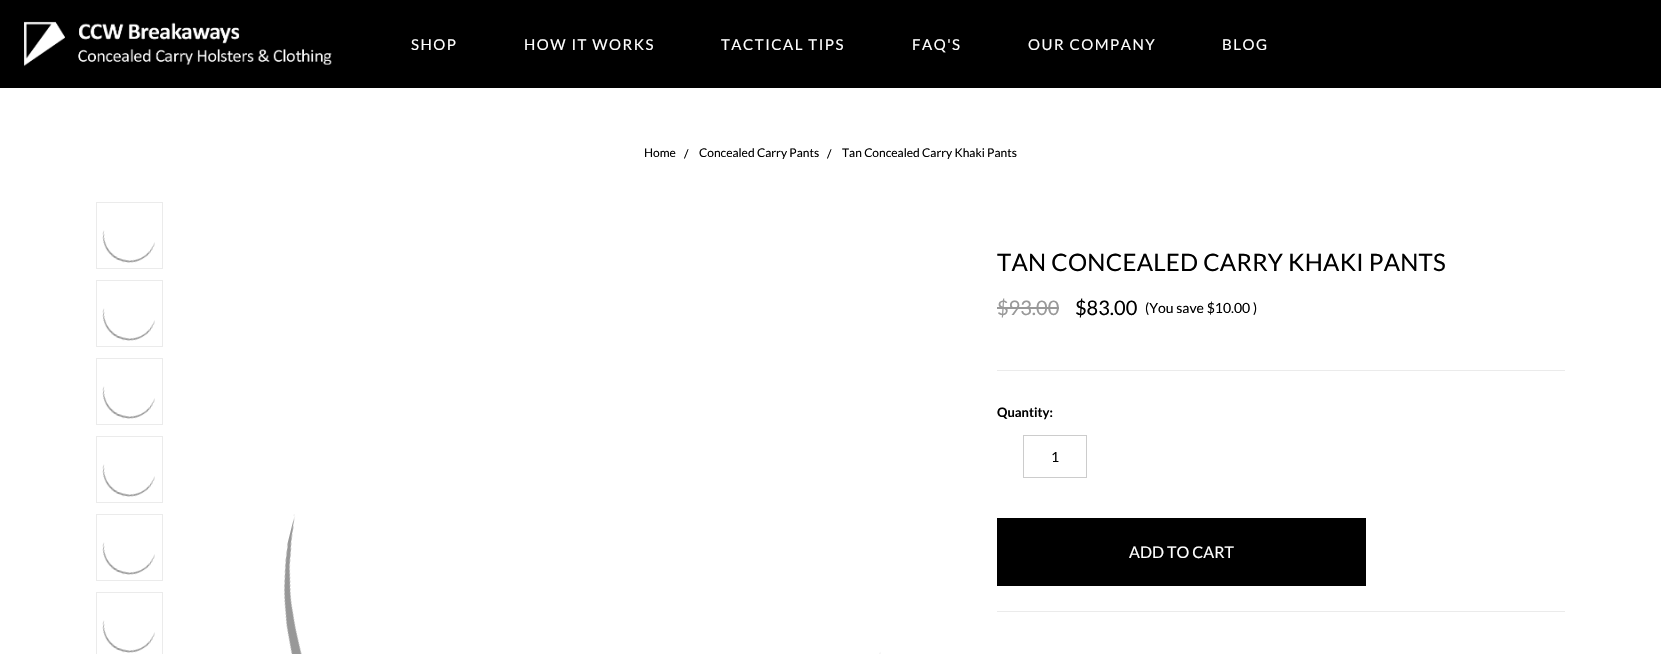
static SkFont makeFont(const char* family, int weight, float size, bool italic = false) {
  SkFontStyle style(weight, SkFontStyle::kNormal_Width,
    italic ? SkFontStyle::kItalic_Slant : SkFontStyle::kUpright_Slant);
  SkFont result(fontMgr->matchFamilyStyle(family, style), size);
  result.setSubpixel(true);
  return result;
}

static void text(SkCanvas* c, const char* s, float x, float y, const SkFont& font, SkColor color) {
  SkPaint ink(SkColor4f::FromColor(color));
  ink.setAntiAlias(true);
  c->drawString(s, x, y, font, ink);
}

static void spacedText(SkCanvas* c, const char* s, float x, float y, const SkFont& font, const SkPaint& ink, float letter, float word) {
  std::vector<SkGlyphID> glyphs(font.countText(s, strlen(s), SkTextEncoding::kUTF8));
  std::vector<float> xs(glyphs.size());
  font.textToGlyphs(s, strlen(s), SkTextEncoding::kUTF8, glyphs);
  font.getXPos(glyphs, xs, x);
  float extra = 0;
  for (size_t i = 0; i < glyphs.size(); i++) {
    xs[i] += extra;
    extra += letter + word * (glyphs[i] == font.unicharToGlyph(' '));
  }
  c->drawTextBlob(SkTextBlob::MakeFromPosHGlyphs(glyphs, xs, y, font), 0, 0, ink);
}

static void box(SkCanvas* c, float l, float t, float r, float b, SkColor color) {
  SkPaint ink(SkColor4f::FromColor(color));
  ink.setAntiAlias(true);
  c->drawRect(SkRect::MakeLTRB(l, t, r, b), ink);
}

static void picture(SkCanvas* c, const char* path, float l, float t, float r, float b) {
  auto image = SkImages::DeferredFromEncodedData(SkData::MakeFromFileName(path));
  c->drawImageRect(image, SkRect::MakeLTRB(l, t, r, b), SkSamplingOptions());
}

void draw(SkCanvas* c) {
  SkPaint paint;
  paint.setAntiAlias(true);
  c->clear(0xffffffff);
  box(c, 0, 0, 1661, 88, 0xff000000);
  picture(c, "img_01.png", 24, 21, 332, 67);
  SkFont face1 = makeFont("Lato", 400, 15);
  paint.setColor(0xffffffff);
  spacedText(c, "SHOP", 411, 50, face1, paint, 1.5f, 0);
  spacedText(c, "HOW IT WORKS", 524, 50, face1, paint, 1.5f, 0);
  spacedText(c, "TACTICAL TIPS", 721, 50, face1, paint, 1.5f, 0);
  spacedText(c, "FAQ'S", 912, 50, face1, paint, 1.5f, 0);
  spacedText(c, "OUR COMPANY", 1028, 50, face1, paint, 1.5f, 0);
  spacedText(c, "BLOG", 1222, 50, face1, paint, 1.5f, 0);
  SkFont face2 = makeFont("Lato", 400, 12);
  text(c, "Home", 644, 157, face2, 0xff000000);
  text(c, "/", 684, 158, face2, 0xff000000);
  text(c, "Concealed Carry Pants", 699, 157, face2, 0xff000000);
  text(c, "/", 827, 158, face2, 0xff000000);
  text(c, "Tan Concealed Carry Khaki Pants", 842, 157, face2, 0xff000000);
  paint.setStyle(SkPaint::kStroke_Style);
  paint.setStrokeWidth(1);
  paint.setColor(0xffebebeb);
  c->drawRect(SkRect::MakeLTRB(96.5f, 202.5f, 162.5f, 268.5f), paint);
  picture(c, "img_02.png", 102, 230, 155, 263);
  c->drawRect(SkRect::MakeLTRB(96.5f, 280.5f, 162.5f, 346.5f), paint);
  picture(c, "img_02.png", 102, 308, 155, 341);
  c->drawRect(SkRect::MakeLTRB(96.5f, 358.5f, 162.5f, 424.5f), paint);
  picture(c, "img_02.png", 102, 386, 155, 419);
  c->drawRect(SkRect::MakeLTRB(96.5f, 436.5f, 162.5f, 502.5f), paint);
  picture(c, "img_02.png", 102, 464, 155, 497);
  c->drawRect(SkRect::MakeLTRB(96.5f, 514.5f, 162.5f, 580.5f), paint);
  picture(c, "img_02.png", 102, 542, 155, 575);
  c->drawRect(SkRect::MakeLTRB(96.5f, 592.5f, 162.5f, 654.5f), paint);
  picture(c, "img_02.png", 102, 620, 155, 653);
  picture(c, "img_03.png", 283, 514, 881, 654);
  box(c, 997, 370, 1565, 371, 0xffebebeb);
  SkFont face3 = makeFont("Lato", 400, 24);
  paint.setStyle(SkPaint::kFill_Style);
  paint.setColor(0xff000000);
  spacedText(c, "TAN CONCEALED CARRY KHAKI PANTS", 997, 271, face3, paint, 0.25f, 0);
  SkFont face4 = makeFont("Lato", 400, 20);
  text(c, "$93.00", 997, 315, face4, 0xff999999);
  box(c, 997, 307, 1059, 309, 0xff999999);
  text(c, "$83.00", 1075, 315, face4, 0xff000000);
  SkFont face5 = makeFont("Lato", 400, 14);
  text(c, "(You save $10.00 )", 1145, 313, face5, 0xff000000);
  box(c, 997, 611, 1565, 612, 0xffebebeb);
  SkFont face6 = makeFont("Lato", 700, 13);
  text(c, "Quantity:", 997, 417, face6, 0xff000000);
  paint.setStyle(SkPaint::kStroke_Style);
  paint.setColor(0xffcccccc);
  c->drawRect(SkRect::MakeLTRB(1023.5f, 435.5f, 1086.5f, 477.5f), paint);
  text(c, "1", 1051, 462, face5, 0xff000000);
  box(c, 997, 518, 1366, 586, 0xff000000);
  SkFont face7 = makeFont("Lato", 400, 16);
  text(c, "ADD TO CART", 1129, 558, face7, 0xffffffff);
}
